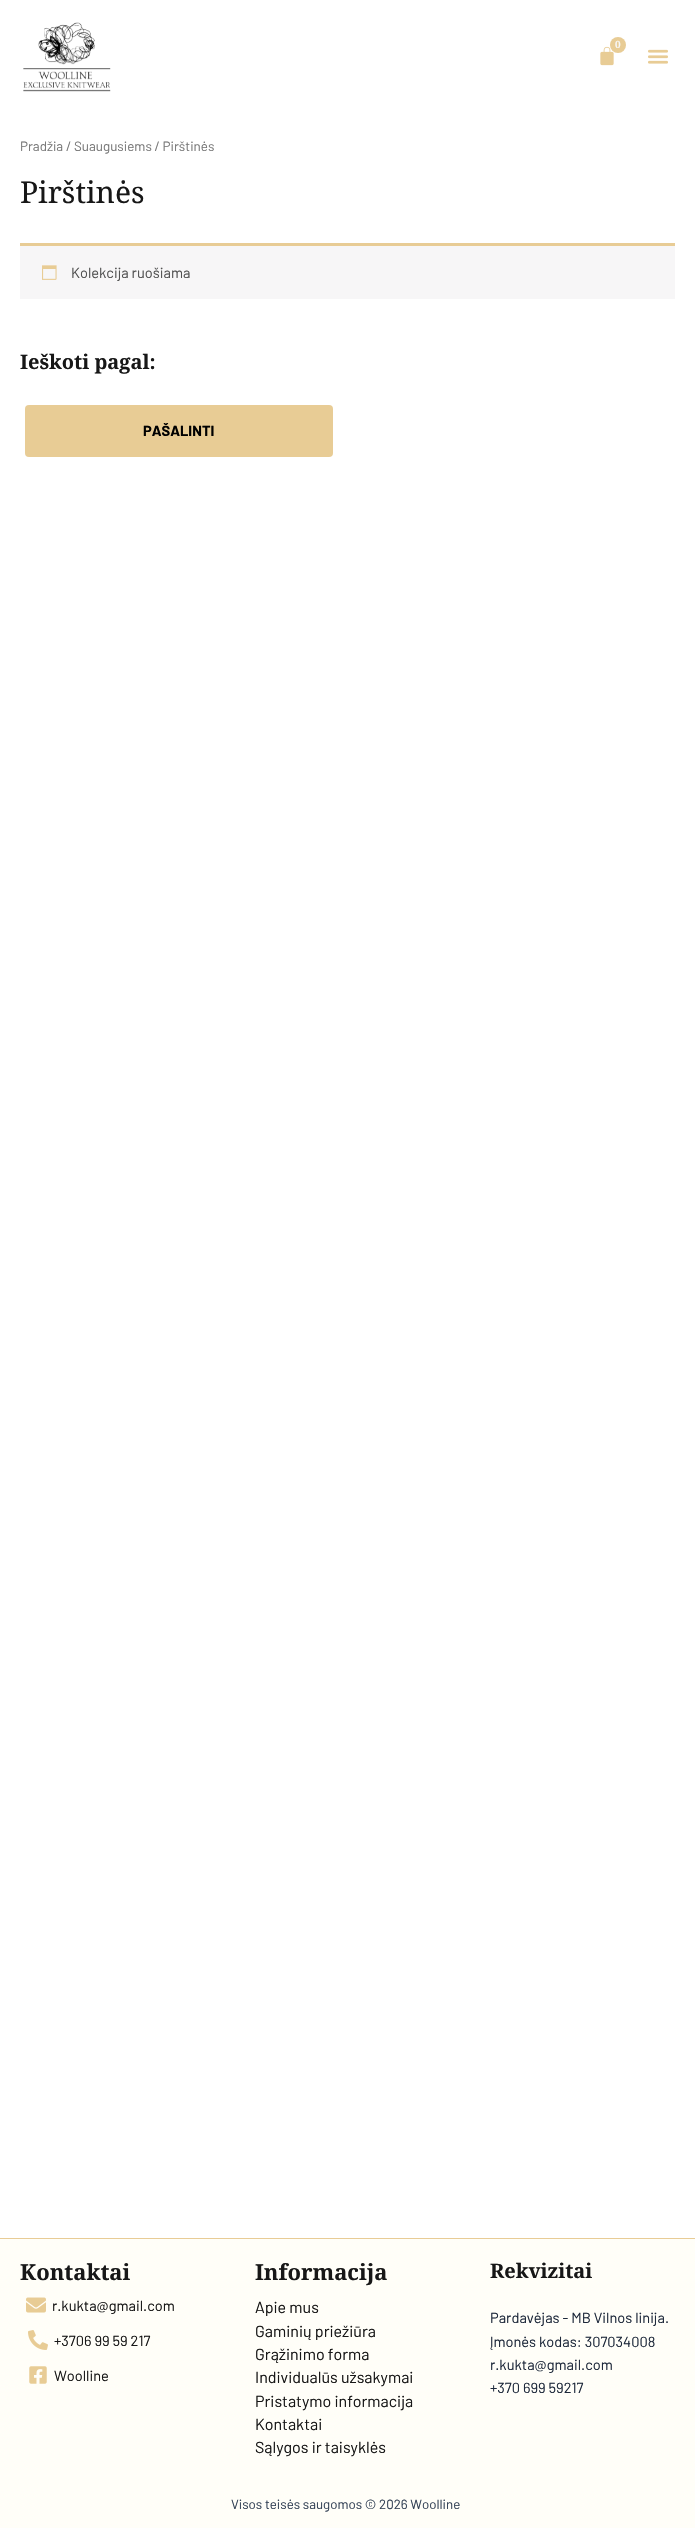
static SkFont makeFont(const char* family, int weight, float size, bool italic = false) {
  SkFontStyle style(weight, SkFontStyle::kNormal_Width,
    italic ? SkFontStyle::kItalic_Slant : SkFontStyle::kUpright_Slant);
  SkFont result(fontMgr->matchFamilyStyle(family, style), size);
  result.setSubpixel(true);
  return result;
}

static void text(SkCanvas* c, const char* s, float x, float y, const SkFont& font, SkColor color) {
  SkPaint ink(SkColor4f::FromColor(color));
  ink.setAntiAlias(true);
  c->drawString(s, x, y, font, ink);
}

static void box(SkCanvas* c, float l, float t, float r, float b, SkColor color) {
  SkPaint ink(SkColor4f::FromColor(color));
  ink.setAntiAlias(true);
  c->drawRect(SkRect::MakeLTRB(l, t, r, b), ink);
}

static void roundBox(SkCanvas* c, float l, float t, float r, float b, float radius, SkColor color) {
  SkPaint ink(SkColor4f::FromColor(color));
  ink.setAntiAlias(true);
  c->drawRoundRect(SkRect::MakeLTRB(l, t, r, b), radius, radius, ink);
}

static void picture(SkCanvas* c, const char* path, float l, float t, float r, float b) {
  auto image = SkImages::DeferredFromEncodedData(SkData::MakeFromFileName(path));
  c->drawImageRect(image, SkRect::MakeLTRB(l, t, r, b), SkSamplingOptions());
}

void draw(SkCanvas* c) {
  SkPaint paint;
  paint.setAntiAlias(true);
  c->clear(0xffffffff);
  picture(c, "img_01.png", 23, 22, 111, 92);
  picture(c, "img_02.png", 600, 46, 614, 66);
  paint.setColor(0xffe8cc95);
  c->drawCircle(618, 45, 8, paint);
  SkFont face1 = makeFont("Noto Serif", 600, 10);
  text(c, "0", 615, 48, face1, 0xfff7f7f7);
  picture(c, "img_03.png", 648, 49, 668, 64);
  SkFont face2 = makeFont("Barlow", 400, 13.4f);
  text(c, "Pradžia / Suaugusiems / Pirštinės", 20, 151, face2, 0xff777777);
  SkFont face3 = makeFont("Noto Serif", 400, 30);
  text(c, "Pirštinės", 20, 203, face3, 0xff171717);
  box(c, 20, 246, 675, 299, 0xfff7f6f7);
  box(c, 20, 243, 675, 246, 0xffe8cc95);
  picture(c, "img_04.png", 42, 265, 57, 280);
  SkFont face4 = makeFont("Barlow", 400, 14.6f);
  text(c, "Kolekcija ruošiama", 71, 278, face4, 0xff515151);
  SkFont face5 = makeFont("Noto Serif", 700, 20);
  text(c, "Ieškoti pagal:", 20, 369, face5, 0xff171717);
  roundBox(c, 25, 405, 333, 457, 4, 0xffe8cc95);
  SkFont face6 = makeFont("Barlow", 700, 14.6f);
  text(c, "PAŠALINTI", 143, 436, face6, 0xff000000);
  box(c, 0, 2239, 695, 2528, 0xfffffef8);
  box(c, 0, 2238, 695, 2239, 0xffe8cc95);
  SkFont face7 = makeFont("Noto Serif", 700, 22);
  text(c, "Kontaktai", 20, 2280, face7, 0xff171717);
  picture(c, "img_05.png", 26, 2297, 46, 2313);
  text(c, "r.kukta@gmail.com", 52, 2311, face4, 0xff171717);
  picture(c, "img_06.png", 28, 2330, 48, 2350);
  text(c, "+3706 99 59 217", 54, 2346, face4, 0xff171717);
  picture(c, "img_07.png", 29, 2366, 47, 2384);
  text(c, "Woolline", 54, 2381, face4, 0xff171717);
  text(c, "Informacija", 255, 2280, face7, 0xff171717);
  SkFont face8 = makeFont("Barlow", 400, 16);
  text(c, "Apie mus", 255, 2313, face8, 0xff171717);
  text(c, "Gaminių priežiūra", 255, 2337, face8, 0xff171717);
  text(c, "Grąžinimo forma", 255, 2360, face8, 0xff171717);
  text(c, "Individualūs užsakymai", 255, 2383, face8, 0xff171717);
  text(c, "Pristatymo informacija", 255, 2407, face8, 0xff171717);
  text(c, "Kontaktai", 255, 2430, face8, 0xff171717);
  text(c, "Sąlygos ir taisyklės", 255, 2453, face8, 0xff171717);
  text(c, "Rekvizitai", 490, 2278, face5, 0xff171717);
  text(c, "Pardavėjas - MB Vilnos linija.", 490, 2323, face4, 0xff1e293b);
  text(c, "Įmonės kodas: 307034008", 490, 2347, face4, 0xff1e293b);
  text(c, "r.kukta@gmail.com", 490, 2370, face4, 0xff1e293b);
  text(c, "+370 699 59217", 490, 2393, face4, 0xff1e293b);
  SkFont face9 = makeFont("Barlow", 400, 13.3f);
  text(c, "Visos teisės saugomos © 2026 Woolline", 231, 2509, face9, 0xff334155);
}
